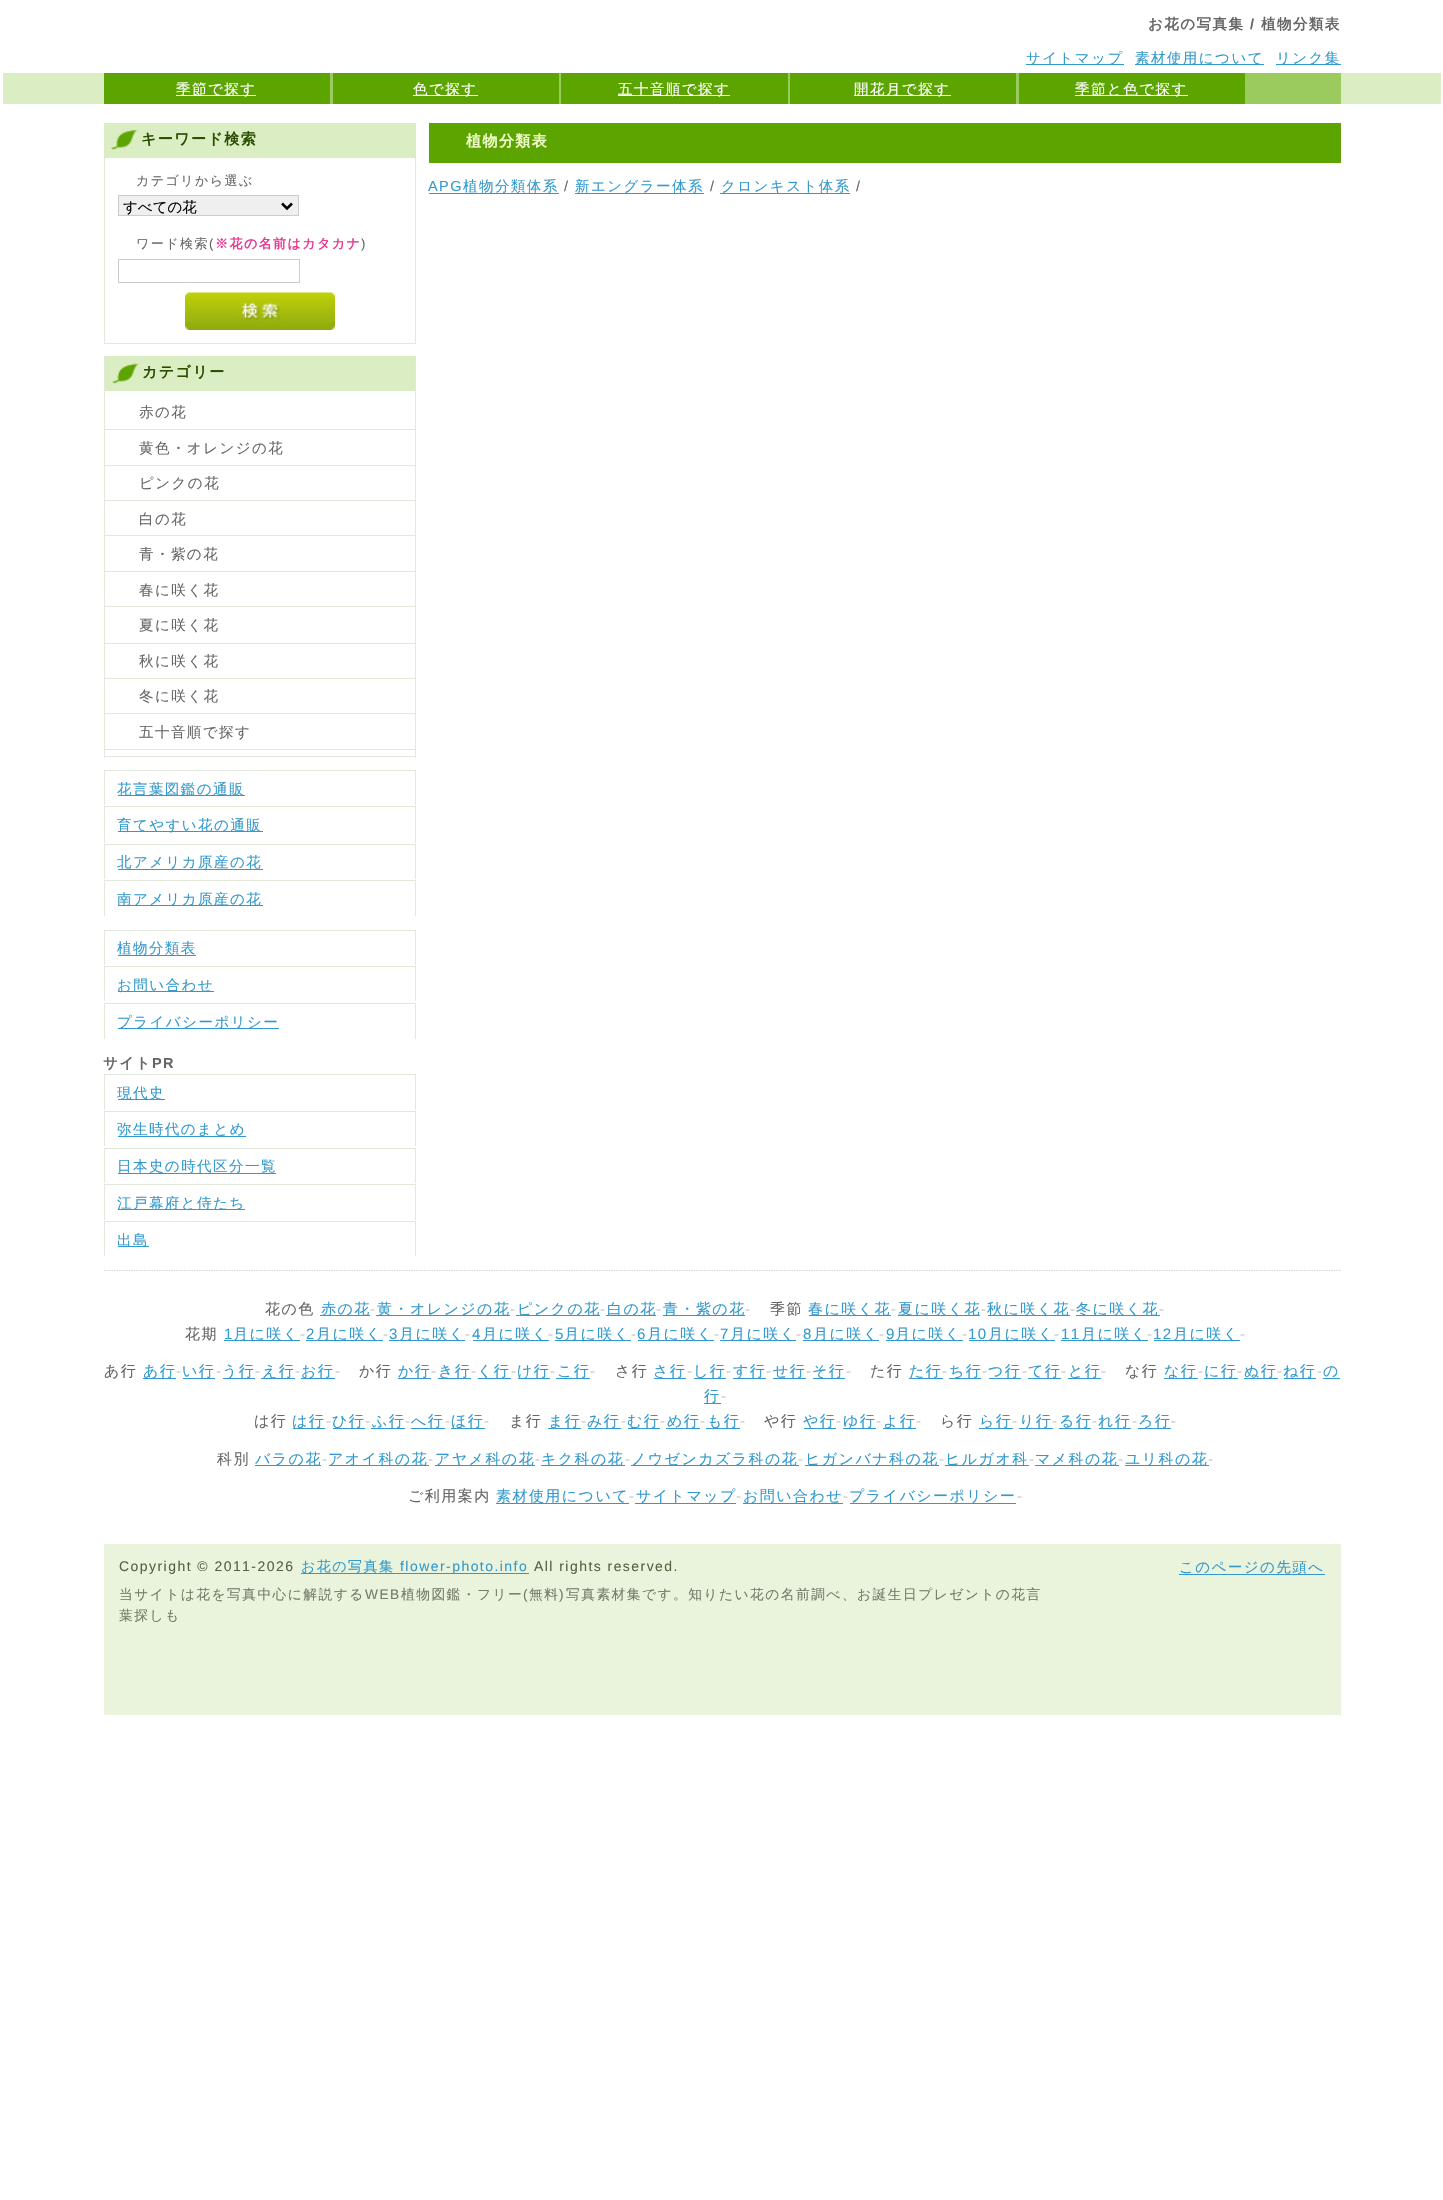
static SkFont makeFont(const char* family, int weight, float size, bool italic = false) {
  SkFontStyle style(weight, SkFontStyle::kNormal_Width,
    italic ? SkFontStyle::kItalic_Slant : SkFontStyle::kUpright_Slant);
  SkFont result(fontMgr->matchFamilyStyle(family, style), size);
  result.setSubpixel(true);
  return result;
}

static void text(SkCanvas* c, const char* s, float x, float y, const SkFont& font, SkColor color) {
  SkPaint ink(SkColor4f::FromColor(color));
  ink.setAntiAlias(true);
  c->drawString(s, x, y, font, ink);
}

static void spacedText(SkCanvas* c, const char* s, float x, float y, const SkFont& font, const SkPaint& ink, float letter, float word) {
  std::vector<SkGlyphID> glyphs(font.countText(s, strlen(s), SkTextEncoding::kUTF8));
  std::vector<float> xs(glyphs.size());
  font.textToGlyphs(s, strlen(s), SkTextEncoding::kUTF8, glyphs);
  font.getXPos(glyphs, xs, x);
  float extra = 0;
  for (size_t i = 0; i < glyphs.size(); i++) {
    xs[i] += extra;
    extra += letter + word * (glyphs[i] == font.unicharToGlyph(' '));
  }
  c->drawTextBlob(SkTextBlob::MakeFromPosHGlyphs(glyphs, xs, y, font), 0, 0, ink);
}

static void box(SkCanvas* c, float l, float t, float r, float b, SkColor color) {
  SkPaint ink(SkColor4f::FromColor(color));
  ink.setAntiAlias(true);
  c->drawRect(SkRect::MakeLTRB(l, t, r, b), ink);
}

static void picture(SkCanvas* c, const char* path, float l, float t, float r, float b) {
  auto image = SkImages::DeferredFromEncodedData(SkData::MakeFromFileName(path));
  c->drawImageRect(image, SkRect::MakeLTRB(l, t, r, b), SkSamplingOptions());
}

void draw(SkCanvas* c) {
  SkPaint paint;
  paint.setAntiAlias(true);
  c->clear(0xffffffff);
  SkFont face1 = makeFont("WenQuanYi Zen Hei", 700, 14.5f);
  paint.setColor(0xff666666);
  spacedText(c, "お花の写真集", 1148, 29, face1, paint, 1.45f, 0);
  SkFont face2 = makeFont("Liberation Sans", 700, 14.5f);
  spacedText(c, "/", 1250, 29, face2, paint, 1.45f, 0);
  spacedText(c, "植物分類表", 1261, 29, face1, paint, 1.45f, 0);
  box(c, 1026, 64, 1124, 65, 0xff3399cc);
  SkFont face3 = makeFont("WenQuanYi Zen Hei", 500, 14.5f);
  paint.setColor(0xff3399cc);
  spacedText(c, "サイトマップ", 1026, 63, face3, paint, 1.45f, 0);
  box(c, 1135, 64, 1264, 65, 0xff3399cc);
  spacedText(c, "素材使用について", 1135, 63, face3, paint, 1.45f, 0);
  box(c, 1276, 64, 1341, 65, 0xff3399cc);
  spacedText(c, "リンク集", 1276, 63, face3, paint, 1.45f, 0);
  box(c, 3, 73, 1441, 104, 0xffdbedc3);
  box(c, 330, 73, 1341, 104, 0xff9bca5e);
  box(c, 104, 73, 330, 104, 0xff5ca400);
  box(c, 176, 95, 256, 96, 0xffffffff);
  paint.setColor(0xffffffff);
  spacedText(c, "季節で探す", 176, 94, face3, paint, 1.45f, 0);
  box(c, 333, 73, 559, 104, 0xff5ca400);
  box(c, 413, 95, 478, 96, 0xffffffff);
  spacedText(c, "色で探す", 413, 94, face3, paint, 1.45f, 0);
  box(c, 561, 73, 788, 104, 0xff5ca400);
  box(c, 618, 95, 730, 96, 0xffffffff);
  spacedText(c, "五十音順で探す", 618, 94, face3, paint, 1.45f, 0);
  box(c, 790, 73, 1016, 104, 0xff5ca400);
  box(c, 854, 95, 951, 96, 0xffffffff);
  spacedText(c, "開花月で探す", 854, 94, face3, paint, 1.45f, 0);
  box(c, 1019, 73, 1245, 104, 0xff5ca400);
  box(c, 1075, 95, 1188, 96, 0xffffffff);
  spacedText(c, "季節と色で探す", 1075, 94, face3, paint, 1.45f, 0);
  box(c, 104, 123, 416, 158, 0xffdbedc3);
  picture(c, "img_01.png", 111, 130, 138, 150);
  SkFont face4 = makeFont("WenQuanYi Zen Hei", 700, 15);
  paint.setColor(0xff2b4d00);
  spacedText(c, "キーワード検索", 141, 144, face4, paint, 1.45f, 0);
  box(c, 415, 158, 416, 344, 0xffe3e8dc);
  box(c, 104, 343, 416, 344, 0xffe3e8dc);
  box(c, 104, 158, 105, 344, 0xffe3e8dc);
  SkFont face5 = makeFont("WenQuanYi Zen Hei", 500, 13);
  paint.setColor(0xff666666);
  spacedText(c, "カテゴリから選ぶ", 136, 185, face5, paint, 1.45f, 0);
  paint.setColor(0xffefefef);
  c->drawRect(SkRect::MakeLTRB(118.5f, 195.5f, 298.5f, 215.5f), paint);
  paint.setStyle(SkPaint::kStroke_Style);
  paint.setStrokeWidth(1);
  paint.setColor(0xffcccccc);
  c->drawRect(SkRect::MakeLTRB(118.5f, 195.5f, 298.5f, 215.5f), paint);
  paint.setStrokeWidth(2.5f);
  paint.setColor(0xff000000);
  c->drawPath(SkPathBuilder().moveTo(282, 203.5f).lineTo(287, 208.5f).lineTo(292, 203.5f).detach(), paint);
  text(c, "すべての花", 123, 212, face3, 0xff000000);
  paint.setStyle(SkPaint::kFill_Style);
  paint.setColor(0xff666666);
  spacedText(c, "ワード検索", 136, 248, face5, paint, 1.45f, 0);
  SkFont face6 = makeFont("Liberation Sans", 400, 13);
  spacedText(c, "(", 209, 248, face6, paint, 1.45f, 0);
  SkFont face7 = makeFont("WenQuanYi Zen Hei", 700, 13);
  paint.setColor(0xffe73b91);
  spacedText(c, "※花の名前はカタカナ", 215, 248, face7, paint, 1.45f, 0);
  paint.setColor(0xff666666);
  spacedText(c, ")", 361, 248, face6, paint, 1.45f, 0);
  paint.setStyle(SkPaint::kStroke_Style);
  paint.setStrokeWidth(1);
  paint.setColor(0xffcccccc);
  c->drawRect(SkRect::MakeLTRB(118.5f, 259.5f, 299.5f, 282.5f), paint);
  picture(c, "img_02.png", 185, 292, 335, 330);
  box(c, 415, 356, 416, 758, 0xffe3e8dc);
  box(c, 104, 756, 416, 757, 0xffe3e8dc);
  box(c, 104, 356, 105, 758, 0xffe3e8dc);
  box(c, 105, 356, 415, 391, 0xffdbedc3);
  picture(c, "img_03.png", 112, 363, 139, 384);
  paint.setStyle(SkPaint::kFill_Style);
  paint.setColor(0xff2b4d00);
  spacedText(c, "カテゴリー", 142, 377, face4, paint, 1.45f, 0);
  box(c, 105, 429, 415, 430, 0xffe3e8dc);
  paint.setColor(0xff666666);
  spacedText(c, "赤の花", 139, 417, face3, paint, 1.45f, 0);
  box(c, 105, 465, 415, 466, 0xffe3e8dc);
  spacedText(c, "黄色・オレンジの花", 139, 453, face3, paint, 1.45f, 0);
  box(c, 105, 500, 415, 501, 0xffe3e8dc);
  spacedText(c, "ピンクの花", 139, 488, face3, paint, 1.45f, 0);
  box(c, 105, 535, 415, 536, 0xffe3e8dc);
  spacedText(c, "白の花", 139, 524, face3, paint, 1.45f, 0);
  box(c, 105, 571, 415, 572, 0xffe3e8dc);
  spacedText(c, "青・紫の花", 139, 559, face3, paint, 1.45f, 0);
  box(c, 105, 606, 415, 607, 0xffe3e8dc);
  spacedText(c, "春に咲く花", 139, 595, face3, paint, 1.45f, 0);
  box(c, 105, 643, 415, 644, 0xffe3e8dc);
  spacedText(c, "夏に咲く花", 139, 630, face3, paint, 1.45f, 0);
  box(c, 105, 678, 415, 679, 0xffe3e8dc);
  spacedText(c, "秋に咲く花", 139, 666, face3, paint, 1.45f, 0);
  box(c, 105, 713, 415, 714, 0xffe3e8dc);
  spacedText(c, "冬に咲く花", 139, 701, face3, paint, 1.45f, 0);
  box(c, 105, 749, 415, 750, 0xffe3e8dc);
  spacedText(c, "五十音順で探す", 139, 737, face3, paint, 1.45f, 0);
  box(c, 104, 770, 416, 771, 0xffe3e8dc);
  box(c, 415, 770, 416, 805, 0xffe3e8dc);
  box(c, 104, 770, 105, 805, 0xffe3e8dc);
  box(c, 118, 795, 245, 796, 0xff3399cc);
  paint.setColor(0xff3399cc);
  spacedText(c, "花言葉図鑑の通販", 117, 794, face3, paint, 1.45f, 0);
  box(c, 104, 806, 416, 807, 0xffe3e8dc);
  box(c, 415, 806, 416, 843, 0xffe3e8dc);
  box(c, 104, 806, 105, 843, 0xffe3e8dc);
  box(c, 118, 831, 263, 832, 0xff3399cc);
  spacedText(c, "育てやすい花の通販", 117, 830, face3, paint, 1.45f, 0);
  box(c, 104, 844, 416, 845, 0xffe3e8dc);
  box(c, 415, 844, 416, 879, 0xffe3e8dc);
  box(c, 104, 844, 105, 879, 0xffe3e8dc);
  spacedText(c, "北アメリカ原産の花", 117, 867, face3, paint, 1.45f, 0);
  box(c, 118, 869, 263, 870, 0xff3399cc);
  box(c, 104, 880, 416, 881, 0xffe3e8dc);
  box(c, 415, 880, 416, 916, 0xffe3e8dc);
  box(c, 104, 880, 105, 916, 0xffe3e8dc);
  box(c, 118, 905, 263, 906, 0xff3399cc);
  spacedText(c, "南アメリカ原産の花", 117, 904, face3, paint, 1.45f, 0);
  box(c, 104, 930, 416, 931, 0xffe3e8dc);
  box(c, 415, 930, 416, 965, 0xffe3e8dc);
  box(c, 104, 930, 105, 965, 0xffe3e8dc);
  box(c, 118, 955, 196, 956, 0xff3399cc);
  spacedText(c, "植物分類表", 117, 953, face3, paint, 1.45f, 0);
  box(c, 104, 966, 416, 967, 0xffe3e8dc);
  box(c, 415, 966, 416, 1001, 0xffe3e8dc);
  box(c, 104, 966, 105, 1001, 0xffe3e8dc);
  box(c, 118, 991, 214, 992, 0xff3399cc);
  spacedText(c, "お問い合わせ", 117, 990, face3, paint, 1.45f, 0);
  box(c, 104, 1003, 416, 1004, 0xffe3e8dc);
  box(c, 415, 1003, 416, 1039, 0xffe3e8dc);
  box(c, 104, 1003, 105, 1039, 0xffe3e8dc);
  box(c, 118, 1028, 279, 1029, 0xff3399cc);
  spacedText(c, "プライバシーポリシー", 117, 1027, face3, paint, 1.45f, 0);
  paint.setColor(0xff666666);
  spacedText(c, "サイト", 103, 1068, face1, paint, 1.45f, 0);
  spacedText(c, "PR", 152, 1068, face2, paint, 1.45f, 0);
  box(c, 104, 1074, 416, 1075, 0xffe3e8dc);
  box(c, 415, 1074, 416, 1110, 0xffe3e8dc);
  box(c, 104, 1074, 105, 1110, 0xffe3e8dc);
  box(c, 118, 1099, 165, 1100, 0xff3399cc);
  paint.setColor(0xff3399cc);
  spacedText(c, "現代史", 117, 1098, face3, paint, 1.45f, 0);
  box(c, 104, 1111, 416, 1112, 0xffe3e8dc);
  box(c, 415, 1111, 416, 1146, 0xffe3e8dc);
  box(c, 104, 1111, 105, 1146, 0xffe3e8dc);
  box(c, 118, 1136, 246, 1137, 0xff3399cc);
  spacedText(c, "弥生時代のまとめ", 117, 1134, face3, paint, 1.45f, 0);
  box(c, 104, 1148, 416, 1149, 0xffe3e8dc);
  box(c, 415, 1148, 416, 1183, 0xffe3e8dc);
  box(c, 104, 1148, 105, 1183, 0xffe3e8dc);
  box(c, 118, 1173, 276, 1174, 0xff3399cc);
  spacedText(c, "日本史の時代区分一覧", 117, 1171, face3, paint, 1.45f, 0);
  box(c, 104, 1184, 416, 1185, 0xffe3e8dc);
  box(c, 415, 1184, 416, 1220, 0xffe3e8dc);
  box(c, 104, 1184, 105, 1220, 0xffe3e8dc);
  box(c, 118, 1209, 245, 1210, 0xff3399cc);
  spacedText(c, "江戸幕府と侍たち", 117, 1208, face3, paint, 1.45f, 0);
  box(c, 104, 1221, 416, 1222, 0xffe3e8dc);
  box(c, 415, 1221, 416, 1256, 0xffe3e8dc);
  box(c, 104, 1221, 105, 1256, 0xffe3e8dc);
  box(c, 118, 1246, 149, 1247, 0xff3399cc);
  spacedText(c, "出島", 117, 1245, face3, paint, 1.45f, 0);
  box(c, 429, 123, 1341, 163, 0xff5ca400);
  paint.setColor(0xfff2ffcc);
  spacedText(c, "植物分類表", 466, 146, face4, paint, 1.45f, 0);
  SkFont face8 = makeFont("Liberation Sans", 400, 14.5f);
  paint.setColor(0xff3399cc);
  spacedText(c, "APG", 428, 191, face8, paint, 1.45f, 0);
  box(c, 429, 193, 559, 194, 0xff3399cc);
  spacedText(c, "植物分類体系", 463, 191, face3, paint, 1.45f, 0);
  paint.setColor(0xff666666);
  spacedText(c, "/", 564, 191, face8, paint, 1.45f, 0);
  paint.setColor(0xff3399cc);
  spacedText(c, "新エングラー体系", 575, 191, face3, paint, 1.45f, 0);
  box(c, 575, 193, 704, 194, 0xff3399cc);
  paint.setColor(0xff666666);
  spacedText(c, "/", 710, 191, face8, paint, 1.45f, 0);
  paint.setColor(0xff3399cc);
  spacedText(c, "クロンキスト体系", 721, 191, face3, paint, 1.45f, 0);
  box(c, 720, 193, 850, 194, 0xff3399cc);
  paint.setColor(0xff666666);
  spacedText(c, "/", 856, 191, face8, paint, 1.45f, 0);
  paint.setStyle(SkPaint::kStroke_Style);
  paint.setStrokeWidth(1.2f);
  paint.setColor(0xffcccccc);
  paint.setPathEffect(SkDashPathEffect::Make({{1.25f, 1.25f}}, 0));
  c->drawPath(SkPathBuilder().moveTo(104, 1270.5f).lineTo(1341, 1270.5f).detach(), paint);
  paint.setPathEffect(nullptr);
  SkFont face9 = makeFont("WenQuanYi Zen Hei", 500, 15);
  paint.setStyle(SkPaint::kFill_Style);
  paint.setColor(0xff666666);
  spacedText(c, "花の色", 265, 1314, face9, paint, 1.45f, 0);
  box(c, 320, 1315, 370, 1316, 0xff3399cc);
  paint.setColor(0xff3399cc);
  spacedText(c, "赤の花", 321, 1314, face9, paint, 1.45f, 0);
  SkFont face10 = makeFont("Liberation Sans", 400, 15);
  paint.setColor(0xffcccccc);
  spacedText(c, "-", 370, 1314, face10, paint, 1.45f, 0);
  box(c, 376, 1315, 510, 1316, 0xff3399cc);
  paint.setColor(0xff3399cc);
  spacedText(c, "黄・オレンジの花", 377, 1314, face9, paint, 1.45f, 0);
  paint.setColor(0xffcccccc);
  spacedText(c, "-", 510, 1314, face10, paint, 1.45f, 0);
  box(c, 516, 1315, 600, 1316, 0xff3399cc);
  paint.setColor(0xff3399cc);
  spacedText(c, "ピンクの花", 517, 1314, face9, paint, 1.45f, 0);
  paint.setColor(0xffcccccc);
  spacedText(c, "-", 600, 1314, face10, paint, 1.45f, 0);
  box(c, 606, 1315, 656, 1316, 0xff3399cc);
  paint.setColor(0xff3399cc);
  spacedText(c, "白の花", 607, 1314, face9, paint, 1.45f, 0);
  paint.setColor(0xffcccccc);
  spacedText(c, "-", 656, 1314, face10, paint, 1.45f, 0);
  box(c, 663, 1315, 745, 1316, 0xff3399cc);
  paint.setColor(0xff3399cc);
  spacedText(c, "青・紫の花", 663, 1314, face9, paint, 1.45f, 0);
  paint.setColor(0xffcccccc);
  spacedText(c, "-", 745, 1314, face10, paint, 1.45f, 0);
  paint.setColor(0xff666666);
  spacedText(c, "季節", 770, 1314, face9, paint, 1.45f, 0);
  box(c, 809, 1315, 891, 1316, 0xff3399cc);
  paint.setColor(0xff3399cc);
  spacedText(c, "春に咲く花", 808, 1314, face9, paint, 1.45f, 0);
  paint.setColor(0xffcccccc);
  spacedText(c, "-", 891, 1314, face10, paint, 1.45f, 0);
  box(c, 898, 1315, 980, 1316, 0xff3399cc);
  paint.setColor(0xff3399cc);
  spacedText(c, "夏に咲く花", 898, 1314, face9, paint, 1.45f, 0);
  paint.setColor(0xffcccccc);
  spacedText(c, "-", 981, 1314, face10, paint, 1.45f, 0);
  box(c, 988, 1315, 1070, 1316, 0xff3399cc);
  paint.setColor(0xff3399cc);
  spacedText(c, "秋に咲く花", 987, 1314, face9, paint, 1.45f, 0);
  paint.setColor(0xffcccccc);
  spacedText(c, "-", 1070, 1314, face10, paint, 1.45f, 0);
  box(c, 1076, 1315, 1160, 1316, 0xff3399cc);
  paint.setColor(0xff3399cc);
  spacedText(c, "冬に咲く花", 1076, 1314, face9, paint, 1.45f, 0);
  paint.setColor(0xffcccccc);
  spacedText(c, "-", 1159, 1314, face10, paint, 1.45f, 0);
  paint.setColor(0xff666666);
  spacedText(c, "花期", 185, 1339, face9, paint, 1.45f, 0);
  paint.setColor(0xff3399cc);
  spacedText(c, "1", 224, 1339, face10, paint, 1.45f, 0);
  box(c, 224, 1340, 300, 1341, 0xff3399cc);
  spacedText(c, "月に咲く", 233, 1339, face9, paint, 1.45f, 0);
  paint.setColor(0xffcccccc);
  spacedText(c, "-", 300, 1339, face10, paint, 1.45f, 0);
  paint.setColor(0xff3399cc);
  spacedText(c, "2", 306, 1339, face10, paint, 1.45f, 0);
  box(c, 306, 1340, 383, 1341, 0xff3399cc);
  spacedText(c, "月に咲く", 316, 1339, face9, paint, 1.45f, 0);
  paint.setColor(0xffcccccc);
  spacedText(c, "-", 383, 1339, face10, paint, 1.45f, 0);
  paint.setColor(0xff3399cc);
  spacedText(c, "3", 389, 1339, face10, paint, 1.45f, 0);
  box(c, 389, 1340, 465, 1341, 0xff3399cc);
  spacedText(c, "月に咲く", 399, 1339, face9, paint, 1.45f, 0);
  paint.setColor(0xffcccccc);
  spacedText(c, "-", 465, 1339, face10, paint, 1.45f, 0);
  paint.setColor(0xff3399cc);
  spacedText(c, "4", 472, 1339, face10, paint, 1.45f, 0);
  box(c, 473, 1340, 549, 1341, 0xff3399cc);
  spacedText(c, "月に咲く", 482, 1339, face9, paint, 1.45f, 0);
  paint.setColor(0xffcccccc);
  spacedText(c, "-", 548, 1339, face10, paint, 1.45f, 0);
  paint.setColor(0xff3399cc);
  spacedText(c, "5", 555, 1339, face10, paint, 1.45f, 0);
  box(c, 555, 1340, 631, 1341, 0xff3399cc);
  spacedText(c, "月に咲く", 564, 1339, face9, paint, 1.45f, 0);
  paint.setColor(0xffcccccc);
  spacedText(c, "-", 631, 1339, face10, paint, 1.45f, 0);
  paint.setColor(0xff3399cc);
  spacedText(c, "6", 637, 1339, face10, paint, 1.45f, 0);
  box(c, 638, 1340, 714, 1341, 0xff3399cc);
  spacedText(c, "月に咲く", 647, 1339, face9, paint, 1.45f, 0);
  paint.setColor(0xffcccccc);
  spacedText(c, "-", 714, 1339, face10, paint, 1.45f, 0);
  box(c, 720, 1340, 796, 1341, 0xff3399cc);
  paint.setColor(0xff3399cc);
  spacedText(c, "7", 720, 1339, face10, paint, 1.45f, 0);
  spacedText(c, "月に咲く", 730, 1339, face9, paint, 1.45f, 0);
  paint.setColor(0xffcccccc);
  spacedText(c, "-", 796, 1339, face10, paint, 1.45f, 0);
  paint.setColor(0xff3399cc);
  spacedText(c, "8", 803, 1339, face10, paint, 1.45f, 0);
  box(c, 803, 1340, 879, 1341, 0xff3399cc);
  spacedText(c, "月に咲く", 813, 1339, face9, paint, 1.45f, 0);
  paint.setColor(0xffcccccc);
  spacedText(c, "-", 879, 1339, face10, paint, 1.45f, 0);
  paint.setColor(0xff3399cc);
  spacedText(c, "9", 886, 1339, face10, paint, 1.45f, 0);
  box(c, 886, 1340, 963, 1341, 0xff3399cc);
  spacedText(c, "月に咲く", 895, 1339, face9, paint, 1.45f, 0);
  paint.setColor(0xffcccccc);
  spacedText(c, "-", 962, 1339, face10, paint, 1.45f, 0);
  paint.setColor(0xff3399cc);
  spacedText(c, "10", 968, 1339, face10, paint, 1.45f, 0);
  box(c, 969, 1340, 1055, 1341, 0xff3399cc);
  spacedText(c, "月に咲く", 988, 1339, face9, paint, 1.45f, 0);
  paint.setColor(0xffcccccc);
  spacedText(c, "-", 1054, 1339, face10, paint, 1.45f, 0);
  paint.setColor(0xff3399cc);
  spacedText(c, "11", 1061, 1339, face10, paint, 1.45f, 0);
  box(c, 1061, 1340, 1148, 1341, 0xff3399cc);
  spacedText(c, "月に咲く", 1081, 1339, face9, paint, 1.45f, 0);
  paint.setColor(0xffcccccc);
  spacedText(c, "-", 1147, 1339, face10, paint, 1.45f, 0);
  paint.setColor(0xff3399cc);
  spacedText(c, "12", 1153, 1339, face10, paint, 1.45f, 0);
  box(c, 1154, 1340, 1240, 1341, 0xff3399cc);
  spacedText(c, "月に咲く", 1173, 1339, face9, paint, 1.45f, 0);
  paint.setColor(0xffcccccc);
  spacedText(c, "-", 1240, 1339, face10, paint, 1.45f, 0);
  paint.setColor(0xff666666);
  spacedText(c, "あ行", 104, 1376, face9, paint, 1.45f, 0);
  box(c, 143, 1378, 176, 1379, 0xff3399cc);
  paint.setColor(0xff3399cc);
  spacedText(c, "あ行", 143, 1376, face9, paint, 1.45f, 0);
  paint.setColor(0xffcccccc);
  spacedText(c, "-", 176, 1376, face10, paint, 1.45f, 0);
  paint.setColor(0xff3399cc);
  spacedText(c, "い行", 182, 1376, face9, paint, 1.45f, 0);
  paint.setColor(0xffcccccc);
  spacedText(c, "-", 216, 1376, face10, paint, 1.45f, 0);
  box(c, 183, 1378, 215, 1379, 0xff3399cc);
  box(c, 223, 1378, 255, 1379, 0xff3399cc);
  paint.setColor(0xff3399cc);
  spacedText(c, "う行", 222, 1376, face9, paint, 1.45f, 0);
  paint.setColor(0xffcccccc);
  spacedText(c, "-", 255, 1376, face10, paint, 1.45f, 0);
  box(c, 261, 1378, 295, 1379, 0xff3399cc);
  paint.setColor(0xff3399cc);
  spacedText(c, "え行", 262, 1376, face9, paint, 1.45f, 0);
  paint.setColor(0xffcccccc);
  spacedText(c, "-", 295, 1376, face10, paint, 1.45f, 0);
  box(c, 301, 1378, 335, 1379, 0xff3399cc);
  paint.setColor(0xff3399cc);
  spacedText(c, "お行", 301, 1376, face9, paint, 1.45f, 0);
  paint.setColor(0xffcccccc);
  spacedText(c, "-", 335, 1376, face10, paint, 1.45f, 0);
  paint.setColor(0xff666666);
  spacedText(c, "か行", 359, 1376, face9, paint, 1.45f, 0);
  box(c, 398, 1378, 431, 1379, 0xff3399cc);
  paint.setColor(0xff3399cc);
  spacedText(c, "か行", 398, 1376, face9, paint, 1.45f, 0);
  paint.setColor(0xffcccccc);
  spacedText(c, "-", 431, 1376, face10, paint, 1.45f, 0);
  box(c, 438, 1378, 471, 1379, 0xff3399cc);
  paint.setColor(0xff3399cc);
  spacedText(c, "き行", 438, 1376, face9, paint, 1.45f, 0);
  paint.setColor(0xffcccccc);
  spacedText(c, "-", 471, 1376, face10, paint, 1.45f, 0);
  box(c, 478, 1378, 511, 1379, 0xff3399cc);
  paint.setColor(0xff3399cc);
  spacedText(c, "く行", 477, 1376, face9, paint, 1.45f, 0);
  paint.setColor(0xffcccccc);
  spacedText(c, "-", 511, 1376, face10, paint, 1.45f, 0);
  box(c, 518, 1378, 550, 1379, 0xff3399cc);
  paint.setColor(0xff3399cc);
  spacedText(c, "け行", 517, 1376, face9, paint, 1.45f, 0);
  paint.setColor(0xffcccccc);
  spacedText(c, "-", 550, 1376, face10, paint, 1.45f, 0);
  paint.setColor(0xff3399cc);
  spacedText(c, "こ行", 557, 1376, face9, paint, 1.45f, 0);
  paint.setColor(0xffcccccc);
  spacedText(c, "-", 590, 1376, face10, paint, 1.45f, 0);
  box(c, 556, 1378, 590, 1379, 0xff3399cc);
  paint.setColor(0xff666666);
  spacedText(c, "さ行", 615, 1376, face9, paint, 1.45f, 0);
  box(c, 654, 1378, 686, 1379, 0xff3399cc);
  paint.setColor(0xff3399cc);
  spacedText(c, "さ行", 653, 1376, face9, paint, 1.45f, 0);
  paint.setColor(0xffcccccc);
  spacedText(c, "-", 687, 1376, face10, paint, 1.45f, 0);
  box(c, 694, 1378, 726, 1379, 0xff3399cc);
  paint.setColor(0xff3399cc);
  spacedText(c, "し行", 693, 1376, face9, paint, 1.45f, 0);
  paint.setColor(0xffcccccc);
  spacedText(c, "-", 726, 1376, face10, paint, 1.45f, 0);
  box(c, 733, 1378, 766, 1379, 0xff3399cc);
  paint.setColor(0xff3399cc);
  spacedText(c, "す行", 733, 1376, face9, paint, 1.45f, 0);
  paint.setColor(0xffcccccc);
  spacedText(c, "-", 766, 1376, face10, paint, 1.45f, 0);
  paint.setColor(0xff3399cc);
  spacedText(c, "せ行", 773, 1376, face9, paint, 1.45f, 0);
  paint.setColor(0xffcccccc);
  spacedText(c, "-", 806, 1376, face10, paint, 1.45f, 0);
  box(c, 773, 1378, 806, 1379, 0xff3399cc);
  box(c, 813, 1378, 845, 1379, 0xff3399cc);
  paint.setColor(0xff3399cc);
  spacedText(c, "そ行", 812, 1376, face9, paint, 1.45f, 0);
  paint.setColor(0xffcccccc);
  spacedText(c, "-", 846, 1376, face10, paint, 1.45f, 0);
  paint.setColor(0xff666666);
  spacedText(c, "た行", 870, 1376, face9, paint, 1.45f, 0);
  box(c, 909, 1378, 943, 1379, 0xff3399cc);
  paint.setColor(0xff3399cc);
  spacedText(c, "た行", 909, 1376, face9, paint, 1.45f, 0);
  paint.setColor(0xffcccccc);
  spacedText(c, "-", 942, 1376, face10, paint, 1.45f, 0);
  box(c, 949, 1378, 981, 1379, 0xff3399cc);
  paint.setColor(0xff3399cc);
  spacedText(c, "ち行", 949, 1376, face9, paint, 1.45f, 0);
  paint.setColor(0xffcccccc);
  spacedText(c, "-", 982, 1376, face10, paint, 1.45f, 0);
  paint.setColor(0xff3399cc);
  spacedText(c, "つ行", 988, 1376, face9, paint, 1.45f, 0);
  paint.setColor(0xffcccccc);
  spacedText(c, "-", 1022, 1376, face10, paint, 1.45f, 0);
  box(c, 989, 1378, 1021, 1379, 0xff3399cc);
  paint.setColor(0xff3399cc);
  spacedText(c, "て行", 1028, 1376, face9, paint, 1.45f, 0);
  paint.setColor(0xffcccccc);
  spacedText(c, "-", 1061, 1376, face10, paint, 1.45f, 0);
  box(c, 1028, 1378, 1061, 1379, 0xff3399cc);
  paint.setColor(0xff3399cc);
  spacedText(c, "と行", 1068, 1376, face9, paint, 1.45f, 0);
  paint.setColor(0xffcccccc);
  spacedText(c, "-", 1101, 1376, face10, paint, 1.45f, 0);
  box(c, 1068, 1378, 1101, 1379, 0xff3399cc);
  paint.setColor(0xff666666);
  spacedText(c, "な行", 1125, 1376, face9, paint, 1.45f, 0);
  box(c, 1164, 1378, 1198, 1379, 0xff3399cc);
  paint.setColor(0xff3399cc);
  spacedText(c, "な行", 1164, 1376, face9, paint, 1.45f, 0);
  paint.setColor(0xffcccccc);
  spacedText(c, "-", 1198, 1376, face10, paint, 1.45f, 0);
  paint.setColor(0xff3399cc);
  spacedText(c, "に行", 1204, 1376, face9, paint, 1.45f, 0);
  paint.setColor(0xffcccccc);
  spacedText(c, "-", 1237, 1376, face10, paint, 1.45f, 0);
  box(c, 1204, 1378, 1238, 1379, 0xff3399cc);
  paint.setColor(0xff3399cc);
  spacedText(c, "ぬ行", 1244, 1376, face9, paint, 1.45f, 0);
  paint.setColor(0xffcccccc);
  spacedText(c, "-", 1277, 1376, face10, paint, 1.45f, 0);
  box(c, 1244, 1378, 1278, 1379, 0xff3399cc);
  box(c, 1284, 1378, 1316, 1379, 0xff3399cc);
  paint.setColor(0xff3399cc);
  spacedText(c, "ね行", 1283, 1376, face9, paint, 1.45f, 0);
  paint.setColor(0xffcccccc);
  spacedText(c, "-", 1317, 1376, face10, paint, 1.45f, 0);
  paint.setColor(0xff3399cc);
  spacedText(c, "の", 1323, 1376, face9, paint, 1.45f, 0);
  box(c, 1323, 1378, 1340, 1379, 0xff3399cc);
  spacedText(c, "行", 704, 1401, face9, paint, 1.45f, 0);
  paint.setColor(0xffcccccc);
  spacedText(c, "-", 721, 1401, face10, paint, 1.45f, 0);
  box(c, 704, 1403, 721, 1404, 0xff3399cc);
  paint.setColor(0xff666666);
  spacedText(c, "は行", 254, 1426, face9, paint, 1.45f, 0);
  box(c, 293, 1428, 325, 1429, 0xff3399cc);
  paint.setColor(0xff3399cc);
  spacedText(c, "は行", 292, 1426, face9, paint, 1.45f, 0);
  paint.setColor(0xffcccccc);
  spacedText(c, "-", 326, 1426, face10, paint, 1.45f, 0);
  paint.setColor(0xff3399cc);
  spacedText(c, "ひ行", 332, 1426, face9, paint, 1.45f, 0);
  paint.setColor(0xffcccccc);
  spacedText(c, "-", 365, 1426, face10, paint, 1.45f, 0);
  box(c, 333, 1428, 365, 1429, 0xff3399cc);
  paint.setColor(0xff3399cc);
  spacedText(c, "ふ行", 372, 1426, face9, paint, 1.45f, 0);
  paint.setColor(0xffcccccc);
  spacedText(c, "-", 405, 1426, face10, paint, 1.45f, 0);
  box(c, 371, 1428, 405, 1429, 0xff3399cc);
  paint.setColor(0xff3399cc);
  spacedText(c, "へ行", 411, 1426, face9, paint, 1.45f, 0);
  paint.setColor(0xffcccccc);
  spacedText(c, "-", 445, 1426, face10, paint, 1.45f, 0);
  box(c, 411, 1428, 445, 1429, 0xff3399cc);
  box(c, 451, 1428, 485, 1429, 0xff3399cc);
  paint.setColor(0xff3399cc);
  spacedText(c, "ほ行", 451, 1426, face9, paint, 1.45f, 0);
  paint.setColor(0xffcccccc);
  spacedText(c, "-", 484, 1426, face10, paint, 1.45f, 0);
  paint.setColor(0xff666666);
  spacedText(c, "ま行", 509, 1426, face9, paint, 1.45f, 0);
  box(c, 548, 1428, 581, 1429, 0xff3399cc);
  paint.setColor(0xff3399cc);
  spacedText(c, "ま行", 548, 1426, face9, paint, 1.45f, 0);
  paint.setColor(0xffcccccc);
  spacedText(c, "-", 581, 1426, face10, paint, 1.45f, 0);
  paint.setColor(0xff3399cc);
  spacedText(c, "み行", 587, 1426, face9, paint, 1.45f, 0);
  paint.setColor(0xffcccccc);
  spacedText(c, "-", 621, 1426, face10, paint, 1.45f, 0);
  box(c, 588, 1428, 621, 1429, 0xff3399cc);
  box(c, 628, 1428, 660, 1429, 0xff3399cc);
  paint.setColor(0xff3399cc);
  spacedText(c, "む行", 627, 1426, face9, paint, 1.45f, 0);
  paint.setColor(0xffcccccc);
  spacedText(c, "-", 660, 1426, face10, paint, 1.45f, 0);
  paint.setColor(0xff3399cc);
  spacedText(c, "め行", 667, 1426, face9, paint, 1.45f, 0);
  paint.setColor(0xffcccccc);
  spacedText(c, "-", 700, 1426, face10, paint, 1.45f, 0);
  box(c, 666, 1428, 700, 1429, 0xff3399cc);
  box(c, 706, 1428, 740, 1429, 0xff3399cc);
  paint.setColor(0xff3399cc);
  spacedText(c, "も行", 707, 1426, face9, paint, 1.45f, 0);
  paint.setColor(0xffcccccc);
  spacedText(c, "-", 740, 1426, face10, paint, 1.45f, 0);
  paint.setColor(0xff666666);
  spacedText(c, "や行", 764, 1426, face9, paint, 1.45f, 0);
  box(c, 804, 1428, 836, 1429, 0xff3399cc);
  paint.setColor(0xff3399cc);
  spacedText(c, "や行", 803, 1426, face9, paint, 1.45f, 0);
  paint.setColor(0xffcccccc);
  spacedText(c, "-", 836, 1426, face10, paint, 1.45f, 0);
  box(c, 843, 1428, 876, 1429, 0xff3399cc);
  paint.setColor(0xff3399cc);
  spacedText(c, "ゆ行", 843, 1426, face9, paint, 1.45f, 0);
  paint.setColor(0xffcccccc);
  spacedText(c, "-", 876, 1426, face10, paint, 1.45f, 0);
  box(c, 883, 1428, 916, 1429, 0xff3399cc);
  paint.setColor(0xff3399cc);
  spacedText(c, "よ行", 883, 1426, face9, paint, 1.45f, 0);
  paint.setColor(0xffcccccc);
  spacedText(c, "-", 916, 1426, face10, paint, 1.45f, 0);
  paint.setColor(0xff666666);
  spacedText(c, "ら行", 940, 1426, face9, paint, 1.45f, 0);
  paint.setColor(0xff3399cc);
  spacedText(c, "ら行", 979, 1426, face9, paint, 1.45f, 0);
  paint.setColor(0xffcccccc);
  spacedText(c, "-", 1012, 1426, face10, paint, 1.45f, 0);
  box(c, 979, 1428, 1013, 1429, 0xff3399cc);
  box(c, 1019, 1428, 1053, 1429, 0xff3399cc);
  paint.setColor(0xff3399cc);
  spacedText(c, "り行", 1019, 1426, face9, paint, 1.45f, 0);
  paint.setColor(0xffcccccc);
  spacedText(c, "-", 1052, 1426, face10, paint, 1.45f, 0);
  paint.setColor(0xff3399cc);
  spacedText(c, "る行", 1059, 1426, face9, paint, 1.45f, 0);
  paint.setColor(0xffcccccc);
  spacedText(c, "-", 1092, 1426, face10, paint, 1.45f, 0);
  box(c, 1059, 1428, 1091, 1429, 0xff3399cc);
  paint.setColor(0xff3399cc);
  spacedText(c, "れ行", 1098, 1426, face9, paint, 1.45f, 0);
  paint.setColor(0xffcccccc);
  spacedText(c, "-", 1132, 1426, face10, paint, 1.45f, 0);
  box(c, 1099, 1428, 1131, 1429, 0xff3399cc);
  paint.setColor(0xff3399cc);
  spacedText(c, "ろ行", 1138, 1426, face9, paint, 1.45f, 0);
  paint.setColor(0xffcccccc);
  spacedText(c, "-", 1171, 1426, face10, paint, 1.45f, 0);
  box(c, 1138, 1428, 1171, 1429, 0xff3399cc);
  paint.setColor(0xff666666);
  spacedText(c, "科別", 217, 1464, face9, paint, 1.45f, 0);
  box(c, 255, 1465, 321, 1466, 0xff3399cc);
  paint.setColor(0xff3399cc);
  spacedText(c, "バラの花", 255, 1464, face9, paint, 1.45f, 0);
  paint.setColor(0xffcccccc);
  spacedText(c, "-", 322, 1464, face10, paint, 1.45f, 0);
  box(c, 329, 1465, 429, 1466, 0xff3399cc);
  paint.setColor(0xff3399cc);
  spacedText(c, "アオイ科の花", 328, 1464, face9, paint, 1.45f, 0);
  paint.setColor(0xffcccccc);
  spacedText(c, "-", 428, 1464, face10, paint, 1.45f, 0);
  box(c, 435, 1465, 535, 1466, 0xff3399cc);
  paint.setColor(0xff3399cc);
  spacedText(c, "アヤメ科の花", 435, 1464, face9, paint, 1.45f, 0);
  paint.setColor(0xffcccccc);
  spacedText(c, "-", 535, 1464, face10, paint, 1.45f, 0);
  box(c, 541, 1465, 625, 1466, 0xff3399cc);
  paint.setColor(0xff3399cc);
  spacedText(c, "キク科の花", 541, 1464, face9, paint, 1.45f, 0);
  paint.setColor(0xffcccccc);
  spacedText(c, "-", 625, 1464, face10, paint, 1.45f, 0);
  box(c, 631, 1465, 799, 1466, 0xff3399cc);
  paint.setColor(0xff3399cc);
  spacedText(c, "ノウゼンカズラ科の花", 631, 1464, face9, paint, 1.45f, 0);
  paint.setColor(0xffcccccc);
  spacedText(c, "-", 798, 1464, face10, paint, 1.45f, 0);
  box(c, 805, 1465, 939, 1466, 0xff3399cc);
  paint.setColor(0xff3399cc);
  spacedText(c, "ヒガンバナ科の花", 805, 1464, face9, paint, 1.45f, 0);
  paint.setColor(0xffcccccc);
  spacedText(c, "-", 939, 1464, face10, paint, 1.45f, 0);
  box(c, 945, 1465, 1029, 1466, 0xff3399cc);
  paint.setColor(0xff3399cc);
  spacedText(c, "ヒルガオ科", 945, 1464, face9, paint, 1.45f, 0);
  paint.setColor(0xffcccccc);
  spacedText(c, "-", 1029, 1464, face10, paint, 1.45f, 0);
  box(c, 1035, 1465, 1119, 1466, 0xff3399cc);
  paint.setColor(0xff3399cc);
  spacedText(c, "マメ科の花", 1035, 1464, face9, paint, 1.45f, 0);
  paint.setColor(0xffcccccc);
  spacedText(c, "-", 1118, 1464, face10, paint, 1.45f, 0);
  box(c, 1125, 1465, 1209, 1466, 0xff3399cc);
  paint.setColor(0xff3399cc);
  spacedText(c, "ユリ科の花", 1125, 1464, face9, paint, 1.45f, 0);
  paint.setColor(0xffcccccc);
  spacedText(c, "-", 1208, 1464, face10, paint, 1.45f, 0);
  paint.setColor(0xff666666);
  spacedText(c, "ご利用案内", 408, 1501, face9, paint, 1.45f, 0);
  box(c, 496, 1503, 629, 1504, 0xff3399cc);
  paint.setColor(0xff3399cc);
  spacedText(c, "素材使用について", 496, 1501, face9, paint, 1.45f, 0);
  paint.setColor(0xffcccccc);
  spacedText(c, "-", 629, 1501, face10, paint, 1.45f, 0);
  box(c, 635, 1503, 736, 1504, 0xff3399cc);
  paint.setColor(0xff3399cc);
  spacedText(c, "サイトマップ", 636, 1501, face9, paint, 1.45f, 0);
  paint.setColor(0xffcccccc);
  spacedText(c, "-", 736, 1501, face10, paint, 1.45f, 0);
  box(c, 743, 1503, 843, 1504, 0xff3399cc);
  paint.setColor(0xff3399cc);
  spacedText(c, "お問い合わせ", 743, 1501, face9, paint, 1.45f, 0);
  paint.setColor(0xffcccccc);
  spacedText(c, "-", 843, 1501, face10, paint, 1.45f, 0);
  box(c, 850, 1503, 1016, 1504, 0xff3399cc);
  paint.setColor(0xff3399cc);
  spacedText(c, "プライバシーポリシー", 849, 1501, face9, paint, 1.45f, 0);
  paint.setColor(0xffcccccc);
  spacedText(c, "-", 1017, 1501, face10, paint, 1.45f, 0);
  box(c, 104, 1544, 1341, 1715, 0xffeaf4dd);
  SkFont face11 = makeFont("Liberation Sans", 400, 14);
  paint.setColor(0xff536240);
  spacedText(c, "Copyright © 2011-2026", 119, 1571, face11, paint, 1.45f, 0);
  box(c, 301, 1573, 529, 1574, 0xff3399cc);
  SkFont face12 = makeFont("WenQuanYi Zen Hei", 500, 14);
  paint.setColor(0xff3399cc);
  spacedText(c, "お花の写真集", 301, 1571, face12, paint, 1.45f, 0);
  spacedText(c, "flower-photo.info", 400, 1571, face11, paint, 1.45f, 0);
  paint.setColor(0xff536240);
  spacedText(c, "All rights reserved.", 534, 1571, face11, paint, 1.45f, 0);
  SkFont face13 = makeFont("WenQuanYi Zen Hei", 500, 13.75f);
  paint.setColor(0xff737b69);
  spacedText(c, "当サイトは花を写真中心に解説する", 119, 1599, face13, paint, 1.45f, 0);
  SkFont face14 = makeFont("Liberation Sans", 400, 13.75f);
  spacedText(c, "WEB", 365, 1599, face14, paint, 1.45f, 0);
  spacedText(c, "植物図鑑・フリー", 401, 1599, face13, paint, 1.45f, 0);
  spacedText(c, "(", 523, 1599, face14, paint, 1.45f, 0);
  spacedText(c, "無料", 529, 1599, face13, paint, 1.45f, 0);
  spacedText(c, ")", 559, 1599, face14, paint, 1.45f, 0);
  spacedText(c, "写真素材集です。知りたい花の名前調べ、お誕生日プレゼントの花言", 566, 1599, face13, paint, 1.45f, 0);
  spacedText(c, "葉探しも", 119, 1620, face13, paint, 1.45f, 0);
  box(c, 1179, 1574, 1325, 1575, 0xff3399cc);
  paint.setColor(0xff3399cc);
  spacedText(c, "このページの先頭へ", 1179, 1572, face3, paint, 1.45f, 0);
}
